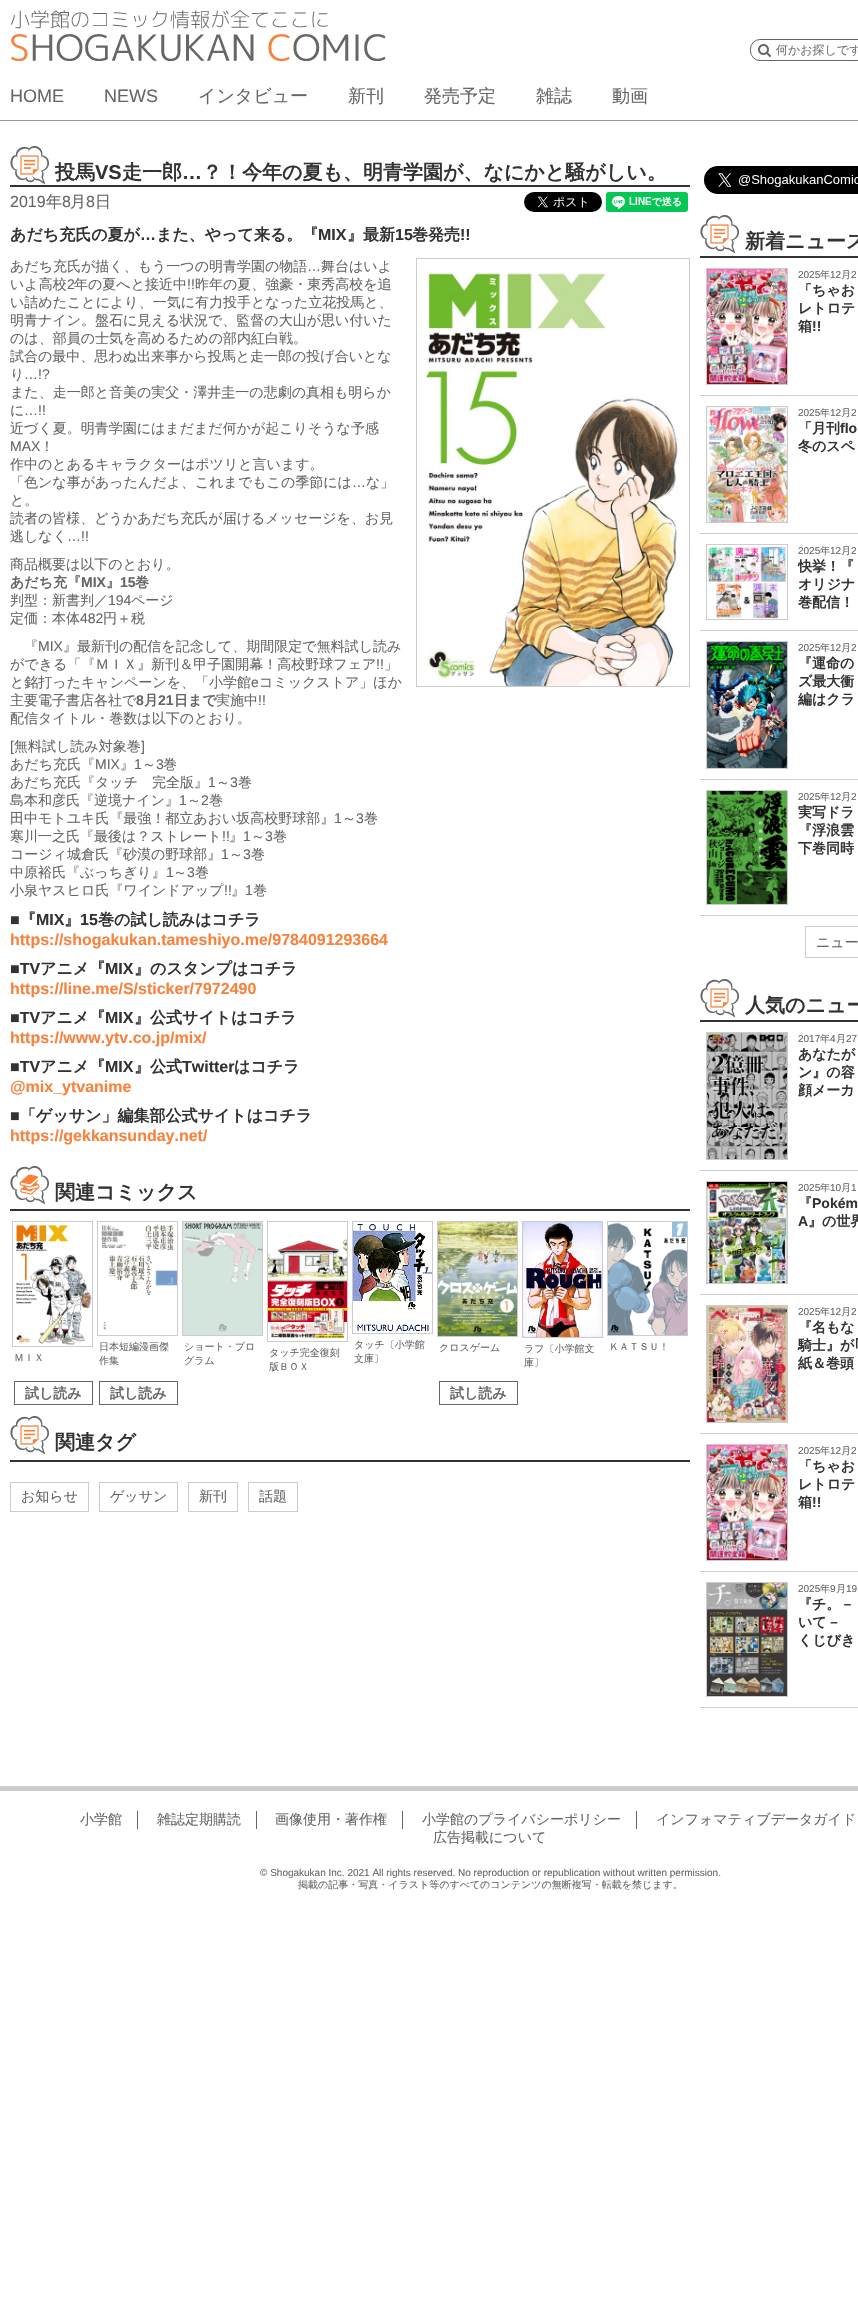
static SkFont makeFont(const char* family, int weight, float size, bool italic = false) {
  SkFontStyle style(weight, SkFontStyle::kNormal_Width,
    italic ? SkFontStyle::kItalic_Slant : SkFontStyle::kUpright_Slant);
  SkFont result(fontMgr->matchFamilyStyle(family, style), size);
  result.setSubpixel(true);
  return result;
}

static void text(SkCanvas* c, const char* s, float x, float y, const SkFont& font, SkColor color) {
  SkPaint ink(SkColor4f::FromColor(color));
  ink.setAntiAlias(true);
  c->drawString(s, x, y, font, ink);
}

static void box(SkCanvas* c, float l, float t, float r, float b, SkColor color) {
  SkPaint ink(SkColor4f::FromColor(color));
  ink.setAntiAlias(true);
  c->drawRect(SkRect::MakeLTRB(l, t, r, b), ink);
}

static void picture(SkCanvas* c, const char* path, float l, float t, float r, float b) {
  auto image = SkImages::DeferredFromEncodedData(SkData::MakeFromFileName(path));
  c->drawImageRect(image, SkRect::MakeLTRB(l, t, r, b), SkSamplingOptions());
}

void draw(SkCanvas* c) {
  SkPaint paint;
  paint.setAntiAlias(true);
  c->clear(0xffffffff);
  box(c, 0, 120, 858, 121, 0xff999999);
  picture(c, "img_01.png", 10, 10, 328, 29);
  picture(c, "img_02.png", 11, 34, 386, 61);
  picture(c, "img_03.png", 758, 44, 771, 57);
  paint.setStyle(SkPaint::kStroke_Style);
  paint.setStrokeWidth(1);
  paint.setColor(0xff666666);
  c->drawRoundRect(SkRect::MakeLTRB(750.5f, 39.5f, 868.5f, 60.5f), 9.5f, 9.5f, paint);
  SkFont face1 = makeFont("WenQuanYi Zen Hei", 500, 12);
  text(c, "何かお探しです", 776, 54, face1, 0xff757575);
  SkFont face2 = makeFont("Liberation Sans", 400, 18);
  text(c, "HOME", 10, 102, face2, 0xff666666);
  text(c, "NEWS", 104, 102, face2, 0xff666666);
  SkFont face3 = makeFont("WenQuanYi Zen Hei", 500, 18);
  text(c, "インタビュー", 198, 102, face3, 0xff666666);
  text(c, "新刊", 348, 102, face3, 0xff666666);
  text(c, "発売予定", 424, 102, face3, 0xff666666);
  text(c, "雑誌", 536, 102, face3, 0xff666666);
  text(c, "動画", 612, 102, face3, 0xff666666);
  picture(c, "img_04.png", 10, 146, 49, 185);
  box(c, 10, 185, 690, 187, 0xff333333);
  SkFont face4 = makeFont("WenQuanYi Zen Hei", 700, 20);
  text(c, "投馬", 55, 179, face4, 0xff333333);
  SkFont face5 = makeFont("Liberation Sans", 700, 20);
  text(c, "VS", 95, 179, face5, 0xff333333);
  text(c, "走一郎", 122, 179, face4, 0xff333333);
  text(c, "…", 182, 179, face5, 0xff333333);
  text(c, "？！今年の夏も、明青学園が、なにかと騒がしい。", 202, 179, face4, 0xff333333);
  SkFont face6 = makeFont("Liberation Sans", 400, 16);
  text(c, "2019", 10, 207, face6, 0xff666666);
  SkFont face7 = makeFont("WenQuanYi Zen Hei", 500, 16);
  text(c, "年", 46, 207, face7, 0xff666666);
  text(c, "8", 62, 207, face6, 0xff666666);
  text(c, "月", 70, 207, face7, 0xff666666);
  text(c, "8", 86, 207, face6, 0xff666666);
  text(c, "日", 95, 207, face7, 0xff666666);
  picture(c, "img_05.png", 524, 192, 602, 212);
  picture(c, "img_06.png", 606, 192, 688, 212);
  SkFont face8 = makeFont("WenQuanYi Zen Hei", 700, 16);
  text(c, "あだち充氏の夏が", 10, 240, face8, 0xff333333);
  SkFont face9 = makeFont("Liberation Sans", 700, 16);
  text(c, "…", 140, 240, face9, 0xff333333);
  text(c, "また、やって来る。『", 156, 240, face8, 0xff333333);
  text(c, "MIX", 318, 240, face9, 0xff333333);
  text(c, "』最新", 347, 240, face8, 0xff333333);
  text(c, "15", 395, 240, face9, 0xff333333);
  text(c, "巻発売", 412, 240, face8, 0xff333333);
  text(c, "!!", 460, 240, face9, 0xff333333);
  SkFont face10 = makeFont("WenQuanYi Zen Hei", 500, 14);
  text(c, "あだち充氏が描く、もう一つの明青学園の物語", 10, 271, face10, 0xff666666);
  SkFont face11 = makeFont("Liberation Sans", 400, 14);
  text(c, "…", 307, 271, face11, 0xff666666);
  text(c, "舞台はいよ", 321, 271, face10, 0xff666666);
  text(c, "いよ高校", 10, 289, face10, 0xff666666);
  text(c, "2", 67, 289, face11, 0xff666666);
  text(c, "年の夏へと接近中", 74, 289, face10, 0xff666666);
  text(c, "!!", 187, 289, face11, 0xff666666);
  text(c, "昨年の夏、強豪・東秀高校を追", 195, 289, face10, 0xff666666);
  text(c, "い詰めたことにより、一気に有力投手となった立花投馬と、", 10, 307, face10, 0xff666666);
  text(c, "明青ナイン。盤石に見える状況で、監督の大山が思い付いた", 10, 325, face10, 0xff666666);
  text(c, "のは、部員の士気を高めるための部内紅白戦。", 10, 343, face10, 0xff666666);
  text(c, "試合の最中、思わぬ出来事から投馬と走一郎の投げ合いとな", 10, 361, face10, 0xff666666);
  text(c, "り", 10, 379, face10, 0xff666666);
  text(c, "…!?", 24, 379, face11, 0xff666666);
  text(c, "また、走一郎と音美の実父・澤井圭一の悲劇の真相も明らか", 10, 397, face10, 0xff666666);
  text(c, "に", 10, 415, face10, 0xff666666);
  text(c, "…!!", 24, 415, face11, 0xff666666);
  text(c, "近づく夏。明青学園にはまだまだ何かが起こりそうな予感", 10, 433, face10, 0xff666666);
  text(c, "MAX", 10, 451, face11, 0xff666666);
  text(c, "！", 40, 451, face10, 0xff666666);
  text(c, "作中のとあるキャラクターはポツリと言います。", 10, 469, face10, 0xff666666);
  text(c, "「色ンな事があったんだよ、これまでもこの季節には", 10, 487, face10, 0xff666666);
  text(c, "…", 352, 487, face11, 0xff666666);
  text(c, "な」", 366, 487, face10, 0xff666666);
  text(c, "と。", 10, 505, face10, 0xff666666);
  text(c, "読者の皆様、どうかあだち充氏が届けるメッセージを、お見", 10, 523, face10, 0xff666666);
  text(c, "逃しなく", 10, 541, face10, 0xff666666);
  text(c, "…!!", 67, 541, face11, 0xff666666);
  paint.setColor(0xffcccccc);
  c->drawRect(SkRect::MakeLTRB(416.5f, 258.5f, 689.5f, 686.5f), paint);
  picture(c, "img_07.png", 424, 273, 678, 686);
  text(c, "商品概要は以下のとおり。", 10, 569, face10, 0xff666666);
  SkFont face12 = makeFont("WenQuanYi Zen Hei", 700, 14);
  text(c, "あだち充『", 10, 587, face12, 0xff666666);
  SkFont face13 = makeFont("Liberation Sans", 700, 14);
  text(c, "MIX", 81, 587, face13, 0xff666666);
  text(c, "』", 106, 587, face12, 0xff666666);
  text(c, "15", 120, 587, face13, 0xff666666);
  text(c, "巻", 135, 587, face12, 0xff666666);
  text(c, "判型：新書判／", 10, 605, face10, 0xff666666);
  text(c, "194", 108, 605, face11, 0xff666666);
  text(c, "ページ", 131, 605, face10, 0xff666666);
  text(c, "定価：本体", 10, 623, face10, 0xff666666);
  text(c, "482", 80, 623, face11, 0xff666666);
  text(c, "円＋税", 103, 623, face10, 0xff666666);
  text(c, "『", 24, 651, face10, 0xff666666);
  text(c, "MIX", 38, 651, face11, 0xff666666);
  text(c, "』最新刊の配信を記念して、期間限定で無料試し読み", 63, 651, face10, 0xff666666);
  text(c, "ができる「『ＭＩＸ』新刊＆甲子園開幕！高校野球フェア", 10, 669, face10, 0xff666666);
  text(c, "!!", 376, 669, face11, 0xff666666);
  text(c, "」", 384, 669, face10, 0xff666666);
  text(c, "と銘打ったキャンペーンを、「小学館", 10, 687, face10, 0xff666666);
  text(c, "e", 251, 687, face11, 0xff666666);
  text(c, "コミックストア」ほか", 259, 687, face10, 0xff666666);
  text(c, "主要電子書店各社で", 10, 705, face10, 0xff666666);
  text(c, "8", 136, 705, face13, 0xff666666);
  text(c, "月", 144, 705, face12, 0xff666666);
  text(c, "21", 158, 705, face13, 0xff666666);
  text(c, "日まで", 174, 705, face12, 0xff666666);
  text(c, "実施中", 216, 705, face10, 0xff666666);
  text(c, "!!", 258, 705, face11, 0xff666666);
  text(c, "配信タイトル・巻数は以下のとおり。", 10, 723, face10, 0xff666666);
  text(c, "[", 10, 751, face11, 0xff666666);
  text(c, "無料試し読み対象巻", 14, 751, face10, 0xff666666);
  text(c, "]", 141, 751, face11, 0xff666666);
  text(c, "あだち充氏『", 10, 769, face10, 0xff666666);
  text(c, "MIX", 95, 769, face11, 0xff666666);
  text(c, "』", 120, 769, face10, 0xff666666);
  text(c, "1", 134, 769, face11, 0xff666666);
  text(c, "～", 142, 769, face10, 0xff666666);
  text(c, "3", 156, 769, face11, 0xff666666);
  text(c, "巻", 163, 769, face10, 0xff666666);
  text(c, "あだち充氏『タッチ　完全版』", 10, 787, face10, 0xff666666);
  text(c, "1", 208, 787, face11, 0xff666666);
  text(c, "～", 216, 787, face10, 0xff666666);
  text(c, "3", 230, 787, face11, 0xff666666);
  text(c, "巻", 238, 787, face10, 0xff666666);
  text(c, "島本和彦氏『逆境ナイン』", 10, 805, face10, 0xff666666);
  text(c, "1", 179, 805, face11, 0xff666666);
  text(c, "～", 187, 805, face10, 0xff666666);
  text(c, "2", 201, 805, face11, 0xff666666);
  text(c, "巻", 209, 805, face10, 0xff666666);
  text(c, "田中モトユキ氏『最強！都立あおい坂高校野球部』", 10, 823, face10, 0xff666666);
  text(c, "1", 334, 823, face11, 0xff666666);
  text(c, "～", 342, 823, face10, 0xff666666);
  text(c, "3", 356, 823, face11, 0xff666666);
  text(c, "巻", 364, 823, face10, 0xff666666);
  text(c, "寒川一之氏『最後は？ストレート", 10, 841, face10, 0xff666666);
  text(c, "!!", 222, 841, face11, 0xff666666);
  text(c, "』", 229, 841, face10, 0xff666666);
  text(c, "1", 243, 841, face11, 0xff666666);
  text(c, "～", 251, 841, face10, 0xff666666);
  text(c, "3", 265, 841, face11, 0xff666666);
  text(c, "巻", 273, 841, face10, 0xff666666);
  text(c, "コージィ城倉氏『砂漠の野球部』", 10, 859, face10, 0xff666666);
  text(c, "1", 221, 859, face11, 0xff666666);
  text(c, "～", 229, 859, face10, 0xff666666);
  text(c, "3", 243, 859, face11, 0xff666666);
  text(c, "巻", 251, 859, face10, 0xff666666);
  text(c, "中原裕氏『ぶっちぎり』", 10, 877, face10, 0xff666666);
  text(c, "1", 166, 877, face11, 0xff666666);
  text(c, "～", 173, 877, face10, 0xff666666);
  text(c, "3", 187, 877, face11, 0xff666666);
  text(c, "巻", 195, 877, face10, 0xff666666);
  text(c, "小泉ヤスヒロ氏『ワインドアップ", 10, 895, face10, 0xff666666);
  text(c, "!!", 224, 895, face11, 0xff666666);
  text(c, "』", 231, 895, face10, 0xff666666);
  text(c, "1", 245, 895, face11, 0xff666666);
  text(c, "巻", 253, 895, face10, 0xff666666);
  text(c, "■", 10, 925, face9, 0xff333333);
  text(c, "『", 20, 925, face8, 0xff333333);
  text(c, "MIX", 36, 925, face9, 0xff333333);
  text(c, "』", 64, 925, face8, 0xff333333);
  text(c, "15", 80, 925, face9, 0xff333333);
  text(c, "巻の試し読みはコチラ", 98, 925, face8, 0xff333333);
  text(c, "https://shogakukan.tameshiyo.me/9784091293664", 10, 945, face9, 0xfff8823c);
  text(c, "■TV", 10, 974, face9, 0xff333333);
  text(c, "アニメ『", 40, 974, face8, 0xff333333);
  text(c, "MIX", 105, 974, face9, 0xff333333);
  text(c, "』のスタンプはコチラ", 134, 974, face8, 0xff333333);
  text(c, "https://line.me/S/sticker/7972490", 10, 994, face9, 0xfff8823c);
  text(c, "■TV", 10, 1023, face9, 0xff333333);
  text(c, "アニメ『", 40, 1023, face8, 0xff333333);
  text(c, "MIX", 105, 1023, face9, 0xff333333);
  text(c, "』公式サイトはコチラ", 134, 1023, face8, 0xff333333);
  text(c, "https://www.ytv.co.jp/mix/", 10, 1043, face9, 0xfff8823c);
  text(c, "■TV", 10, 1072, face9, 0xff333333);
  text(c, "アニメ『", 40, 1072, face8, 0xff333333);
  text(c, "MIX", 105, 1072, face9, 0xff333333);
  text(c, "』公式", 134, 1072, face8, 0xff333333);
  text(c, "Twitter", 182, 1072, face9, 0xff333333);
  text(c, "はコチラ", 234, 1072, face8, 0xff333333);
  text(c, "@mix_ytvanime", 10, 1092, face9, 0xfff8823c);
  text(c, "■", 10, 1121, face9, 0xff333333);
  text(c, "「ゲッサン」編集部公式サイトはコチラ", 20, 1121, face8, 0xff333333);
  text(c, "https://gekkansunday.net/", 10, 1141, face9, 0xfff8823c);
  picture(c, "img_08.png", 10, 1166, 49, 1205);
  box(c, 10, 1209, 690, 1211, 0xff333333);
  text(c, "関連コミックス", 55, 1199, face4, 0xff333333);
  c->drawRect(SkRect::MakeLTRB(12.5f, 1221.5f, 92.5f, 1346.5f), paint);
  picture(c, "img_09.png", 16, 1225, 92, 1345);
  SkFont face14 = makeFont("WenQuanYi Zen Hei", 500, 10);
  text(c, "ＭＩＸ", 14, 1361, face14, 0xff666666);
  paint.setColor(0xff666666);
  c->drawRect(SkRect::MakeLTRB(14.5f, 1381.5f, 92.5f, 1404.5f), paint);
  text(c, "試し読み", 25, 1398, face12, 0xff666666);
  paint.setColor(0xffcccccc);
  c->drawRect(SkRect::MakeLTRB(97.5f, 1221.5f, 177.5f, 1335.5f), paint);
  picture(c, "img_10.png", 101, 1225, 177, 1330);
  text(c, "日本短編漫画傑", 99, 1350, face14, 0xff666666);
  text(c, "作集", 99, 1364, face14, 0xff666666);
  paint.setColor(0xff666666);
  c->drawRect(SkRect::MakeLTRB(99.5f, 1381.5f, 177.5f, 1404.5f), paint);
  text(c, "試し読み", 110, 1398, face12, 0xff666666);
  paint.setColor(0xffcccccc);
  c->drawRect(SkRect::MakeLTRB(182.5f, 1221.5f, 262.5f, 1335.5f), paint);
  picture(c, "img_11.png", 183, 1222, 262, 1335);
  text(c, "ショート・プロ", 184, 1350, face14, 0xff666666);
  text(c, "グラム", 184, 1364, face14, 0xff666666);
  c->drawRect(SkRect::MakeLTRB(267.5f, 1221.5f, 347.5f, 1341.5f), paint);
  picture(c, "img_12.png", 268, 1238, 347, 1339);
  text(c, "タッチ完全復刻", 269, 1356, face14, 0xff666666);
  text(c, "版ＢＯＸ", 269, 1370, face14, 0xff666666);
  c->drawRect(SkRect::MakeLTRB(352.5f, 1221.5f, 432.5f, 1333.5f), paint);
  picture(c, "img_13.png", 353, 1222, 432, 1333);
  text(c, "タッチ〔小学館", 354, 1348, face14, 0xff666666);
  text(c, "文庫〕", 354, 1362, face14, 0xff666666);
  c->drawRect(SkRect::MakeLTRB(437.5f, 1221.5f, 517.5f, 1336.5f), paint);
  picture(c, "img_14.png", 438, 1222, 517, 1336);
  text(c, "クロスゲーム", 439, 1351, face14, 0xff666666);
  paint.setColor(0xff666666);
  c->drawRect(SkRect::MakeLTRB(439.5f, 1381.5f, 517.5f, 1404.5f), paint);
  text(c, "試し読み", 450, 1398, face12, 0xff666666);
  paint.setColor(0xffcccccc);
  c->drawRect(SkRect::MakeLTRB(522.5f, 1221.5f, 602.5f, 1337.5f), paint);
  picture(c, "img_15.png", 523, 1222, 602, 1337);
  text(c, "ラフ〔小学館文", 524, 1352, face14, 0xff666666);
  text(c, "庫〕", 524, 1366, face14, 0xff666666);
  c->drawRect(SkRect::MakeLTRB(607.5f, 1221.5f, 687.5f, 1335.5f), paint);
  picture(c, "img_16.png", 608, 1222, 687, 1335);
  text(c, "ＫＡＴＳＵ！", 609, 1350, face14, 0xff666666);
  picture(c, "img_04.png", 10, 1416, 49, 1455);
  box(c, 10, 1460, 690, 1462, 0xff333333);
  text(c, "関連タグ", 55, 1449, face4, 0xff333333);
  c->drawRect(SkRect::MakeLTRB(10.5f, 1482.5f, 88.5f, 1511.5f), paint);
  text(c, "お知らせ", 21, 1501, face10, 0xff666666);
  c->drawRect(SkRect::MakeLTRB(99.5f, 1482.5f, 177.5f, 1511.5f), paint);
  text(c, "ゲッサン", 110, 1501, face10, 0xff666666);
  c->drawRect(SkRect::MakeLTRB(188.5f, 1482.5f, 237.5f, 1511.5f), paint);
  text(c, "新刊", 199, 1501, face10, 0xff666666);
  c->drawRect(SkRect::MakeLTRB(248.5f, 1482.5f, 297.5f, 1511.5f), paint);
  text(c, "話題", 259, 1501, face10, 0xff666666);
  picture(c, "img_17.png", 704, 166, 858, 194);
  picture(c, "img_04.png", 700, 215, 739, 254);
  box(c, 700, 256, 858, 258, 0xff333333);
  text(c, "新着ニュース", 745, 248, face4, 0xff333333);
  box(c, 700, 395, 858, 396, 0xffcccccc);
  c->drawRect(SkRect::MakeLTRB(706.5f, 268.5f, 787.5f, 384.5f), paint);
  picture(c, "img_18.png", 707, 269, 787, 384);
  SkFont face15 = makeFont("Liberation Sans", 400, 10);
  text(c, "2025", 798, 278, face15, 0xff666666);
  text(c, "年", 820, 278, face14, 0xff666666);
  text(c, "12", 830, 278, face15, 0xff666666);
  text(c, "月", 841, 278, face14, 0xff666666);
  text(c, "2", 851, 278, face15, 0xff666666);
  text(c, "「ちゃお", 798, 295, face12, 0xff333333);
  text(c, "レトロテ", 798, 313, face12, 0xff333333);
  text(c, "箱", 798, 331, face12, 0xff333333);
  text(c, "!!", 812, 331, face13, 0xff333333);
  box(c, 700, 533, 858, 534, 0xffcccccc);
  c->drawRect(SkRect::MakeLTRB(706.5f, 406.5f, 787.5f, 522.5f), paint);
  picture(c, "img_19.png", 707, 407, 787, 522);
  text(c, "2025", 798, 416, face15, 0xff666666);
  text(c, "年", 820, 416, face14, 0xff666666);
  text(c, "12", 830, 416, face15, 0xff666666);
  text(c, "月", 841, 416, face14, 0xff666666);
  text(c, "2", 851, 416, face15, 0xff666666);
  text(c, "「月刊", 798, 433, face12, 0xff333333);
  text(c, "flo", 840, 433, face13, 0xff333333);
  text(c, "冬のスペ", 798, 451, face12, 0xff333333);
  box(c, 700, 630, 858, 631, 0xffcccccc);
  c->drawRect(SkRect::MakeLTRB(706.5f, 544.5f, 787.5f, 619.5f), paint);
  picture(c, "img_20.png", 708, 546, 787, 619);
  text(c, "2025", 798, 554, face15, 0xff666666);
  text(c, "年", 820, 554, face14, 0xff666666);
  text(c, "12", 830, 554, face15, 0xff666666);
  text(c, "月", 841, 554, face14, 0xff666666);
  text(c, "2", 851, 554, face15, 0xff666666);
  text(c, "快挙！『", 798, 571, face12, 0xff333333);
  text(c, "オリジナ", 798, 589, face12, 0xff333333);
  text(c, "巻配信！", 798, 607, face12, 0xff333333);
  box(c, 700, 779, 858, 780, 0xffcccccc);
  c->drawRect(SkRect::MakeLTRB(706.5f, 641.5f, 787.5f, 768.5f), paint);
  picture(c, "img_21.png", 707, 642, 787, 768);
  text(c, "2025", 798, 651, face15, 0xff666666);
  text(c, "年", 820, 651, face14, 0xff666666);
  text(c, "12", 830, 651, face15, 0xff666666);
  text(c, "月", 841, 651, face14, 0xff666666);
  text(c, "2", 851, 651, face15, 0xff666666);
  text(c, "『運命の", 798, 668, face12, 0xff333333);
  text(c, "ズ最大衝", 798, 686, face12, 0xff333333);
  text(c, "編はクラ", 798, 704, face12, 0xff333333);
  box(c, 700, 915, 858, 916, 0xffcccccc);
  c->drawRect(SkRect::MakeLTRB(706.5f, 790.5f, 787.5f, 904.5f), paint);
  picture(c, "img_22.png", 707, 791, 787, 904);
  text(c, "2025", 798, 800, face15, 0xff666666);
  text(c, "年", 820, 800, face14, 0xff666666);
  text(c, "12", 830, 800, face15, 0xff666666);
  text(c, "月", 841, 800, face14, 0xff666666);
  text(c, "2", 851, 800, face15, 0xff666666);
  text(c, "実写ドラ", 798, 817, face12, 0xff333333);
  text(c, "『浮浪雲", 798, 835, face12, 0xff333333);
  text(c, "下巻同時", 798, 853, face12, 0xff333333);
  c->drawRect(SkRect::MakeLTRB(805.5f, 926.5f, 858.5f, 957.5f), paint);
  text(c, "ニュー", 816, 947, face10, 0xff666666);
  picture(c, "img_04.png", 700, 979, 739, 1018);
  box(c, 700, 1020, 858, 1022, 0xff333333);
  text(c, "人気のニュー", 745, 1012, face4, 0xff333333);
  box(c, 700, 1170, 858, 1171, 0xffcccccc);
  c->drawRect(SkRect::MakeLTRB(706.5f, 1032.5f, 787.5f, 1159.5f), paint);
  picture(c, "img_23.png", 707, 1033, 787, 1159);
  text(c, "2017", 798, 1042, face15, 0xff666666);
  text(c, "年", 820, 1042, face14, 0xff666666);
  text(c, "4", 830, 1042, face15, 0xff666666);
  text(c, "月", 836, 1042, face14, 0xff666666);
  text(c, "27", 846, 1042, face15, 0xff666666);
  text(c, "あなたが", 798, 1059, face12, 0xff333333);
  text(c, "ン』の容", 798, 1077, face12, 0xff333333);
  text(c, "顔メーカ", 798, 1095, face12, 0xff333333);
  box(c, 700, 1294, 858, 1295, 0xffcccccc);
  c->drawRect(SkRect::MakeLTRB(706.5f, 1181.5f, 787.5f, 1283.5f), paint);
  picture(c, "img_24.png", 707, 1182, 787, 1283);
  text(c, "2025", 798, 1191, face15, 0xff666666);
  text(c, "年", 820, 1191, face14, 0xff666666);
  text(c, "10", 830, 1191, face15, 0xff666666);
  text(c, "月", 841, 1191, face14, 0xff666666);
  text(c, "1", 851, 1191, face15, 0xff666666);
  text(c, "『", 798, 1208, face12, 0xff333333);
  text(c, "Pokém", 812, 1208, face13, 0xff333333);
  text(c, "A", 798, 1226, face13, 0xff333333);
  text(c, "』の世界", 808, 1226, face12, 0xff333333);
  box(c, 700, 1433, 858, 1434, 0xffcccccc);
  c->drawRect(SkRect::MakeLTRB(706.5f, 1305.5f, 787.5f, 1422.5f), paint);
  picture(c, "img_25.png", 707, 1306, 787, 1422);
  text(c, "2025", 798, 1315, face15, 0xff666666);
  text(c, "年", 820, 1315, face14, 0xff666666);
  text(c, "12", 830, 1315, face15, 0xff666666);
  text(c, "月", 841, 1315, face14, 0xff666666);
  text(c, "2", 851, 1315, face15, 0xff666666);
  text(c, "『名もな", 798, 1332, face12, 0xff333333);
  text(c, "騎士』が", 798, 1350, face12, 0xff333333);
  SkFont face16 = makeFont("IPAPGothic", 700, 14);
  text(c, "｢", 854, 1350, face16, 0xff333333);
  text(c, "紙＆巻頭", 798, 1368, face12, 0xff333333);
  box(c, 700, 1571, 858, 1572, 0xffcccccc);
  c->drawRect(SkRect::MakeLTRB(706.5f, 1444.5f, 787.5f, 1560.5f), paint);
  picture(c, "img_18.png", 707, 1445, 787, 1560);
  text(c, "2025", 798, 1454, face15, 0xff666666);
  text(c, "年", 820, 1454, face14, 0xff666666);
  text(c, "12", 830, 1454, face15, 0xff666666);
  text(c, "月", 841, 1454, face14, 0xff666666);
  text(c, "2", 851, 1454, face15, 0xff666666);
  text(c, "「ちゃお", 798, 1471, face12, 0xff333333);
  text(c, "レトロテ", 798, 1489, face12, 0xff333333);
  text(c, "箱", 798, 1507, face12, 0xff333333);
  text(c, "!!", 812, 1507, face13, 0xff333333);
  box(c, 700, 1707, 858, 1708, 0xffcccccc);
  c->drawRect(SkRect::MakeLTRB(706.5f, 1582.5f, 787.5f, 1696.5f), paint);
  picture(c, "img_26.png", 707, 1583, 787, 1696);
  text(c, "2025", 798, 1592, face15, 0xff666666);
  text(c, "年", 820, 1592, face14, 0xff666666);
  text(c, "9", 830, 1592, face15, 0xff666666);
  text(c, "月", 836, 1592, face14, 0xff666666);
  text(c, "19", 846, 1592, face15, 0xff666666);
  text(c, "『チ。－", 798, 1609, face12, 0xff333333);
  text(c, "いて－", 798, 1627, face12, 0xff333333);
  text(c, "くじびき", 798, 1645, face12, 0xff333333);
  box(c, 0, 1786, 858, 1791, 0xffcccccc);
  box(c, 137, 1811, 138, 1829, 0xff666666);
  text(c, "小学館", 80, 1824, face10, 0xff666666);
  box(c, 256, 1811, 257, 1829, 0xff666666);
  text(c, "雑誌定期購読", 157, 1824, face10, 0xff666666);
  box(c, 402, 1811, 403, 1829, 0xff666666);
  text(c, "画像使用・著作権", 275, 1824, face10, 0xff666666);
  box(c, 636, 1811, 637, 1829, 0xff666666);
  text(c, "小学館のプライバシーポリシー", 422, 1824, face10, 0xff666666);
  text(c, "インフォマティブデータガイド", 656, 1824, face10, 0xff666666);
  text(c, "広告掲載について", 433, 1842, face10, 0xff666666);
  text(c, "© Shogakukan Inc. 2021 All rights reserved. No reproduction or republication without written permission.", 260, 1876, face15, 0xff666666);
  text(c, "掲載の記事・写真・イラスト等のすべてのコンテンツの無断複写・転載を禁じます。", 298, 1888, face14, 0xff666666);
}
